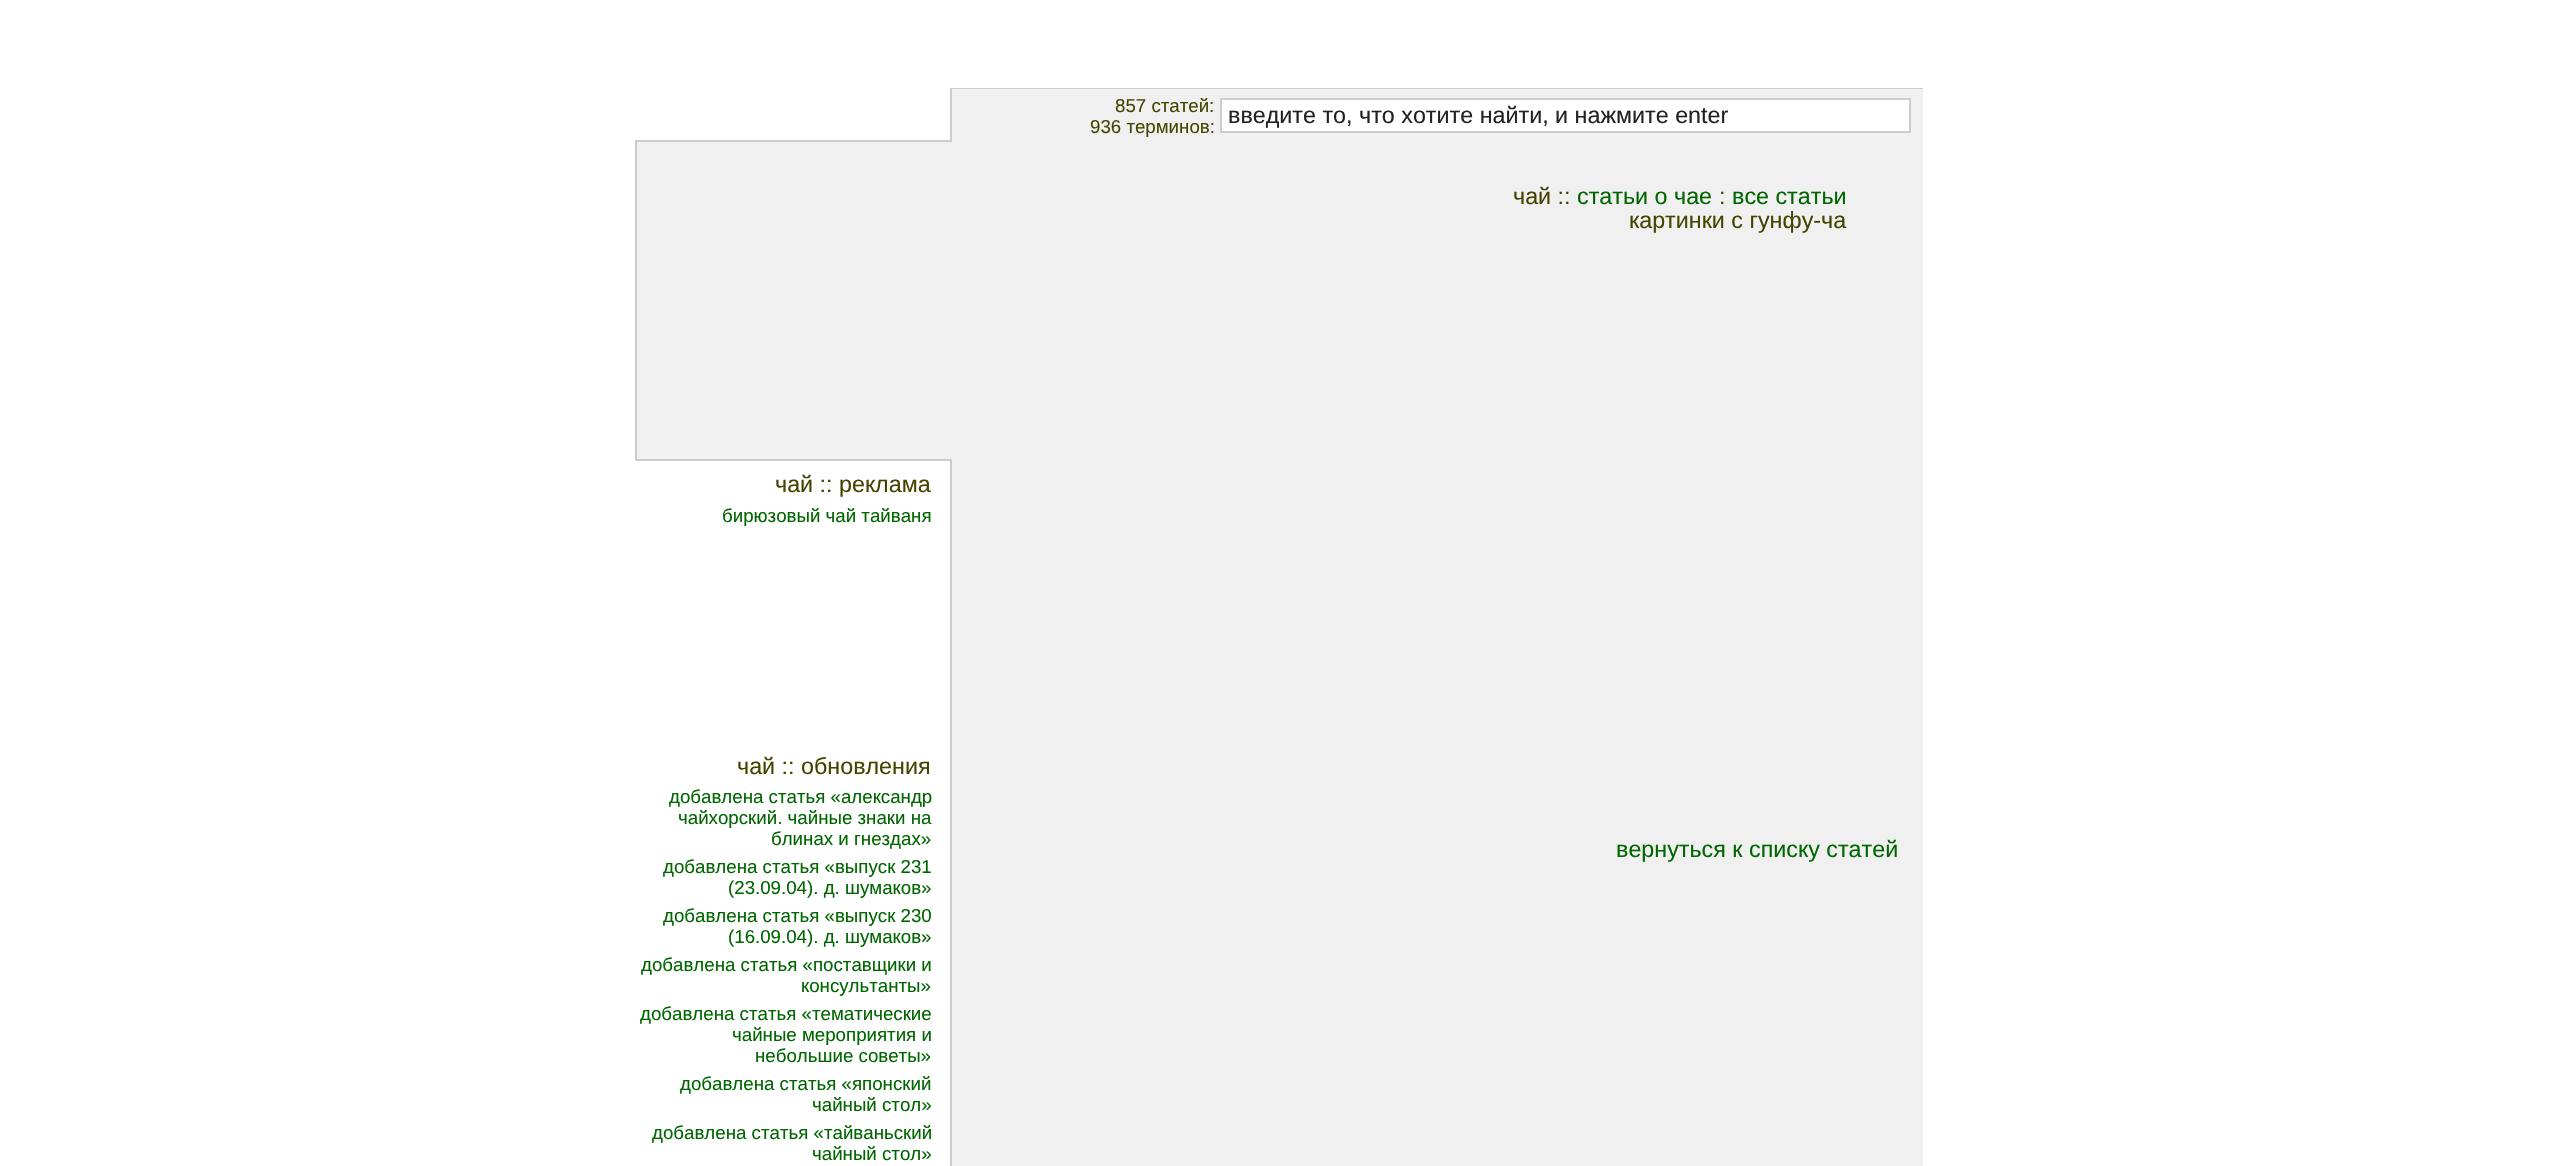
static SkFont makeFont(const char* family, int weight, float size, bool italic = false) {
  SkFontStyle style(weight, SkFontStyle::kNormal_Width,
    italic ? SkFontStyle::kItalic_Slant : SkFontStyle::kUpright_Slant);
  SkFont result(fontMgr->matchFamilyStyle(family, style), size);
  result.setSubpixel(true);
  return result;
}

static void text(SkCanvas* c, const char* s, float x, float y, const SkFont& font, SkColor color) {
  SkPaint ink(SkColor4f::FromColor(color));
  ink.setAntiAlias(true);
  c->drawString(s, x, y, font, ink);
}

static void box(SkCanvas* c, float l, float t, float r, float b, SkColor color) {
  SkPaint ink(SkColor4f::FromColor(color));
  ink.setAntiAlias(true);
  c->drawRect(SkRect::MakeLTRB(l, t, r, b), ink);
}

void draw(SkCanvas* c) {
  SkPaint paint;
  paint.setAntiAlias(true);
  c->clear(0xffffffff);
  box(c, 635, 140, 950, 142, 0xffcccccc);
  box(c, 635, 142, 637, 461, 0xffcccccc);
  box(c, 637, 142, 952, 459, 0xfff0f0f0);
  box(c, 637, 459, 950, 461, 0xffcccccc);
  SkFont face1 = makeFont("Liberation Sans", 400, 23.3f);
  text(c, "чай :: реклама", 775, 492, face1, 0xff444400);
  SkFont face2 = makeFont("Liberation Sans", 400, 18.7f);
  text(c, "бирюзовый чай тайваня", 722, 522, face2, 0xff006600);
  text(c, "чай :: обновления", 737, 774, face1, 0xff444400);
  text(c, "добавлена статья «александр", 669, 803, face2, 0xff006600);
  text(c, "чайхорский. чайные знаки на", 678, 824, face2, 0xff006600);
  text(c, "блинах и гнездах»", 771, 845, face2, 0xff006600);
  text(c, "добавлена статья «выпуск 231", 663, 873, face2, 0xff006600);
  text(c, "(23.09.04). д. шумаков»", 728, 894, face2, 0xff006600);
  text(c, "добавлена статья «выпуск 230", 663, 922, face2, 0xff006600);
  text(c, "(16.09.04). д. шумаков»", 728, 943, face2, 0xff006600);
  text(c, "добавлена статья «поставщики и", 641, 971, face2, 0xff006600);
  text(c, "консультанты»", 801, 992, face2, 0xff006600);
  text(c, "добавлена статья «тематические", 640, 1020, face2, 0xff006600);
  text(c, "чайные мероприятия и", 732, 1041, face2, 0xff006600);
  text(c, "небольшие советы»", 755, 1062, face2, 0xff006600);
  text(c, "добавлена статья «японский", 680, 1090, face2, 0xff006600);
  text(c, "чайный стол»", 812, 1111, face2, 0xff006600);
  text(c, "добавлена статья «тайваньский", 652, 1139, face2, 0xff006600);
  text(c, "чайный стол»", 812, 1160, face2, 0xff006600);
  box(c, 950, 88, 952, 142, 0xffcccccc);
  box(c, 950, 459, 952, 1166, 0xffcccccc);
  box(c, 952, 88, 1923, 89, 0xffcccccc);
  box(c, 952, 89, 1923, 1166, 0xfff0f0f0);
  text(c, "857 статей:", 1115, 112, face2, 0xff444400);
  text(c, "936 терминов:", 1090, 133, face2, 0xff444400);
  paint.setColor(0xffffffff);
  c->drawRect(SkRect::MakeLTRB(1221, 99, 1910, 132), paint);
  paint.setStyle(SkPaint::kStroke_Style);
  paint.setStrokeWidth(2);
  paint.setColor(0xffcccccc);
  c->drawRect(SkRect::MakeLTRB(1221, 99, 1910, 132), paint);
  text(c, "введите то, что хотите найти, и нажмите enter", 1228, 123, face1, 0xff222222);
  text(c, "чай ::", 1513, 204, face1, 0xff444400);
  text(c, "статьи о чае", 1577, 204, face1, 0xff006600);
  text(c, ":", 1719, 204, face1, 0xff444400);
  text(c, "все статьи", 1732, 204, face1, 0xff006600);
  text(c, "картинки с гунфу-ча", 1629, 228, face1, 0xff444400);
  text(c, "вернуться к списку статей", 1616, 857, face1, 0xff006600);
}
